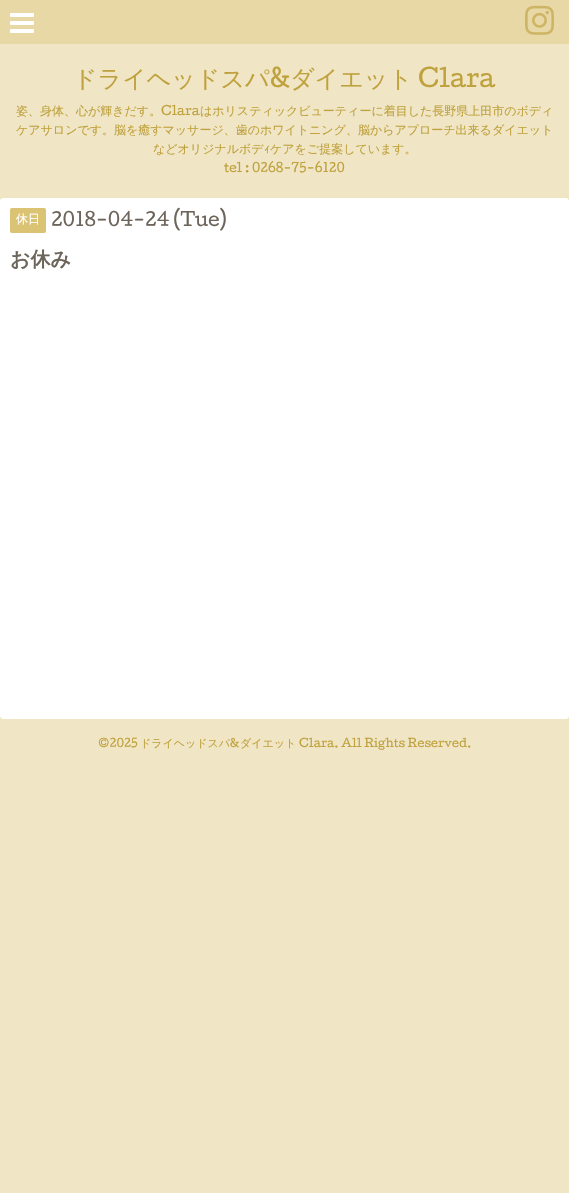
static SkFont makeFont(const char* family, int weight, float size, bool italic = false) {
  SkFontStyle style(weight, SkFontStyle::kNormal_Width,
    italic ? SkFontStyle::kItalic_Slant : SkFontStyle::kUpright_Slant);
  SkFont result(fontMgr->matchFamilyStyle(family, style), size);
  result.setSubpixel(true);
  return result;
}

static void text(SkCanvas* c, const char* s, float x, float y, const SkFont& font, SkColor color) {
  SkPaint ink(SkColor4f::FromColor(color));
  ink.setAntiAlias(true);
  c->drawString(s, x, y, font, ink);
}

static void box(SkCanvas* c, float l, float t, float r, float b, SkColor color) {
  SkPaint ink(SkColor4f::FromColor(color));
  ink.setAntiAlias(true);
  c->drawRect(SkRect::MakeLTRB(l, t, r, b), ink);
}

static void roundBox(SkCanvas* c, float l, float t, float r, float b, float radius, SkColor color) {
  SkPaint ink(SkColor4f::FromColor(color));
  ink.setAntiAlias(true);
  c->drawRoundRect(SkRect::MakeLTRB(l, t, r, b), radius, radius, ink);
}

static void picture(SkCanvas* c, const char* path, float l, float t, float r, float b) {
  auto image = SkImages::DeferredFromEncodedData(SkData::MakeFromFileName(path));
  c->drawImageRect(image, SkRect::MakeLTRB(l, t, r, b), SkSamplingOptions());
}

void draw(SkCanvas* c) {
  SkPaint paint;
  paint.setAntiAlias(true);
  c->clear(0xfff0e6c5);
  box(c, 0, 0, 569, 44, 0xffe8d8a5);
  picture(c, "img_01.png", 10, 13, 34, 33);
  picture(c, "img_02.png", 525, 5, 554, 35);
  SkFont face1 = makeFont("WenQuanYi Zen Hei", 500, 24);
  text(c, "ドライヘッドスパ", 73, 87, face1, 0xffbfa13d);
  SkFont face2 = makeFont("Cutive", 400, 24);
  text(c, "&", 270, 87, face2, 0xffbfa13d);
  text(c, "ダイエット", 290, 87, face1, 0xffbfa13d);
  text(c, "Clara", 418, 87, face2, 0xffbfa13d);
  SkFont face3 = makeFont("WenQuanYi Zen Hei", 500, 12);
  text(c, "姿、身体、心が輝きだす。", 16, 115, face3, 0xffbfa13d);
  SkFont face4 = makeFont("Cutive", 400, 12);
  text(c, "Clara", 161, 115, face4, 0xffbfa13d);
  text(c, "はホリスティックビューティーに着目した長野県上田市のボディ", 200, 115, face3, 0xffbfa13d);
  text(c, "ケアサロンです。脳を癒すマッサージ、歯のホワイトニング、脳からアプローチ出来るダイエット", 16, 134, face3, 0xffbfa13d);
  text(c, "などオリジナルボデ", 153, 153, face3, 0xffbfa13d);
  SkFont face5 = makeFont("IPAPGothic", 400, 12);
  text(c, "ｨ", 264, 153, face5, 0xffbfa13d);
  text(c, "ケアをご提案しています。", 270, 153, face3, 0xffbfa13d);
  text(c, "tel : 0268-75-6120", 224, 172, face4, 0xffbfa13d);
  paint.setColor(0x66e8d8a5);
  paint.setMaskFilter(SkMaskFilter::MakeBlur(kNormal_SkBlurStyle, 5));
  c->drawRoundRect(SkRect::MakeLTRB(0, 201, 569, 701), 3, 3, paint);
  paint.setMaskFilter(nullptr);
  paint.setColor(0xffffffff);
  c->drawPath(SkPathBuilder().moveTo(3, 198).lineTo(566, 198).cubicTo(567.5f, 198, 569, 199.5f, 569, 201).lineTo(569, 698).lineTo(0, 698).lineTo(0, 201).cubicTo(0, 199.5f, 1.5f, 198, 3, 198).close().detach(), paint);
  roundBox(c, 10, 208, 46, 233, 2, 0xffdbc374);
  text(c, "休日", 16, 223, face3, 0xffffffff);
  SkFont face6 = makeFont("Cutive", 400, 18);
  text(c, "2018-04-24 (Tue)", 51, 226, face6, 0xff6d655b);
  SkFont face7 = makeFont("WenQuanYi Zen Hei", 700, 20);
  text(c, "お休み", 10, 266, face7, 0xff6d655b);
  c->drawPath(SkPathBuilder().moveTo(0, 698).lineTo(569, 698).lineTo(569, 716).cubicTo(569, 717.5f, 567.5f, 719, 566, 719).lineTo(3, 719).cubicTo(1.5f, 719, 0, 717.5f, 0, 716).close().detach(), paint);
  SkFont face8 = makeFont("Cutive", 400, 11);
  text(c, "©2025", 98, 747, face8, 0xffbfa13d);
  SkFont face9 = makeFont("WenQuanYi Zen Hei", 500, 11);
  text(c, "ドライヘッドスパ", 140, 747, face9, 0xffbfa13d);
  text(c, "&", 230, 747, face8, 0xffbfa13d);
  text(c, "ダイエット", 240, 747, face9, 0xffbfa13d);
  text(c, "Clara. All Rights Reserved.", 299, 747, face8, 0xffbfa13d);
}
